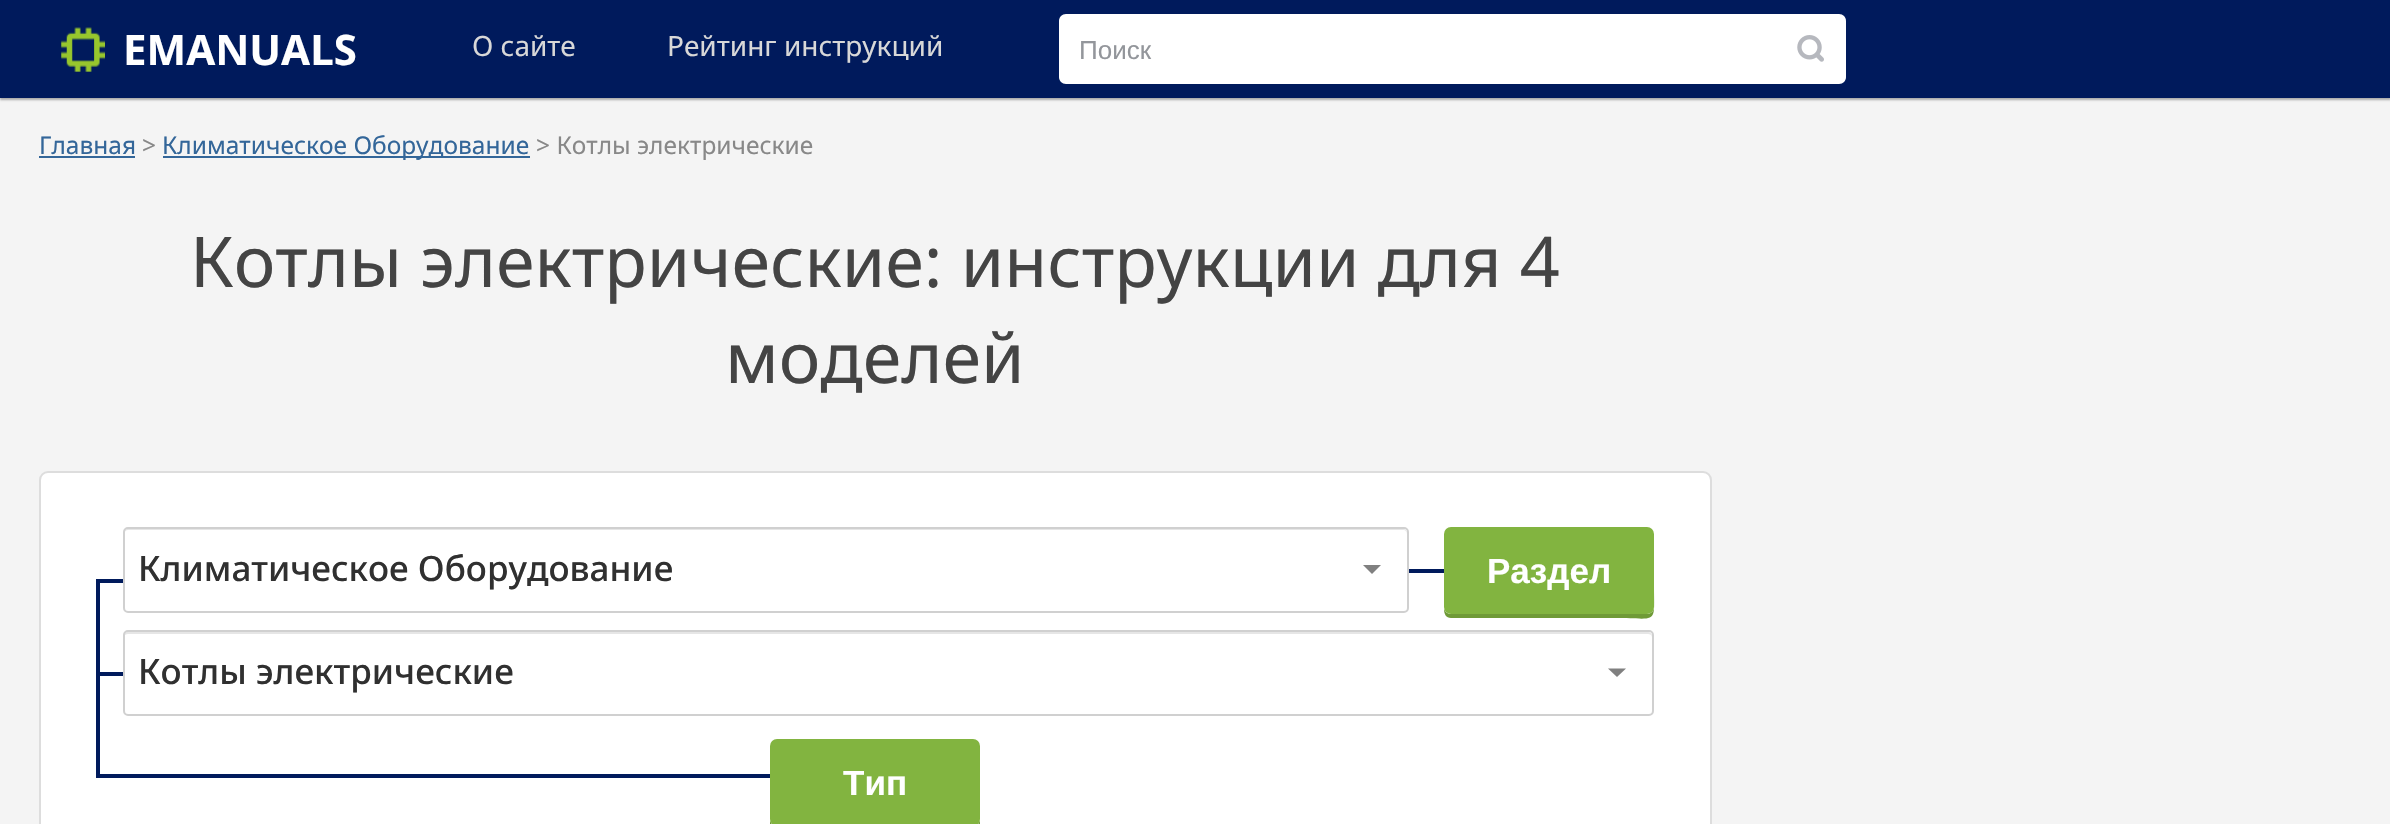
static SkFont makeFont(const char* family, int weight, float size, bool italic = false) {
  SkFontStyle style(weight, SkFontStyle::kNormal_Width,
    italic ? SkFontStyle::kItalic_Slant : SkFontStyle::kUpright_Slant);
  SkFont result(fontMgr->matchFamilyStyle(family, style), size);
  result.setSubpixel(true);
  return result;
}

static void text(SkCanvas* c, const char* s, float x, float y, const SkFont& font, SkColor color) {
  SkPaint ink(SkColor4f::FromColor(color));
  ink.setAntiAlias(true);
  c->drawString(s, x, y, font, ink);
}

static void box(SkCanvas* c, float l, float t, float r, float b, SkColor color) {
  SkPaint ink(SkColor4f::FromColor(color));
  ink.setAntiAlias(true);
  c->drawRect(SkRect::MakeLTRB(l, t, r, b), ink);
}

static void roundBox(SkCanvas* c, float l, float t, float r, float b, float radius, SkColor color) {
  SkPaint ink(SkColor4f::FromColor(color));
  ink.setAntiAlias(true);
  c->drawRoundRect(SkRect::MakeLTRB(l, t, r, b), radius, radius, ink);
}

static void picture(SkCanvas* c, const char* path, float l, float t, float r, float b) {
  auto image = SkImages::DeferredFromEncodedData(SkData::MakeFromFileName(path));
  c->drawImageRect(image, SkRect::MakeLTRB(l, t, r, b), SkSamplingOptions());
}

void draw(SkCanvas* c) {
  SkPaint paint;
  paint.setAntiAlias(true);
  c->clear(0xfff4f4f4);
  paint.setColor(0x4d000000);
  paint.setMaskFilter(SkMaskFilter::MakeBlur(kNormal_SkBlurStyle, 1));
  c->drawRect(SkRect::MakeLTRB(0, 2, 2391, 100), paint);
  paint.setMaskFilter(nullptr);
  box(c, 0, 0, 2390, 98, 0xff001a5c);
  picture(c, "img_01.png", 61, 27, 105, 72);
  SkFont face1 = makeFont("Noto Sans", 700, 42);
  text(c, "EMANUALS", 123, 65, face1, 0xffffffff);
  SkFont face2 = makeFont("Noto Sans", 400, 28);
  text(c, "О сайте", 472, 56, face2, 0xffd8d8d8);
  text(c, "Рейтинг инструкций", 667, 56, face2, 0xffd8d8d8);
  paint.setColor(0xffffffff);
  c->drawPath(SkPathBuilder().moveTo(1066, 14).lineTo(1776, 14).lineTo(1776, 84).lineTo(1066, 84).cubicTo(1062, 84, 1059, 81, 1059, 77).lineTo(1059, 21).cubicTo(1059, 17, 1062, 14, 1066, 14).close().detach(), paint);
  SkFont face3 = makeFont("Liberation Sans", 400, 26);
  text(c, "Поиск", 1079, 59, face3, 0xff93969b);
  c->drawPath(SkPathBuilder().moveTo(1776, 14).lineTo(1839, 14).cubicTo(1843, 14, 1846, 17, 1846, 21).lineTo(1846, 77).cubicTo(1846, 81, 1843, 84, 1839, 84).lineTo(1776, 84).close().detach(), paint);
  picture(c, "img_02.png", 1797, 35, 1824, 62);
  SkFont face4 = makeFont("Noto Sans", 400, 24.5f);
  text(c, "Главная", 39, 154, face4, 0xff336699);
  box(c, 39, 156, 135, 158, 0xff336699);
  text(c, ">", 142, 154, face4, 0xff888888);
  box(c, 163, 156, 530, 158, 0xff336699);
  text(c, "Климатическое Оборудование", 162, 154, face4, 0xff336699);
  text(c, "> Котлы электрические", 536, 154, face4, 0xff888888);
  SkFont face5 = makeFont("Noto Sans", 400, 70);
  text(c, "Котлы электрические: инструкции для 4", 190, 287, face5, 0xff444444);
  text(c, "моделей", 725, 383, face5, 0xff444444);
  c->drawPath(SkPathBuilder().moveTo(47, 472).lineTo(1703, 472).cubicTo(1707, 472, 1710, 476, 1710, 480).lineTo(1710, 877).cubicTo(1710, 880, 1707, 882, 1703, 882).lineTo(47, 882).cubicTo(43, 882, 40, 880, 40, 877).lineTo(40, 480).cubicTo(40, 476, 43, 472, 47, 472).close().detach(), paint);
  paint.setStyle(SkPaint::kStroke_Style);
  paint.setStrokeWidth(2);
  paint.setColor(0xffdddddd);
  c->drawRoundRect(SkRect::MakeLTRB(40, 472, 1711, 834), 8, 8, paint);
  paint.setStyle(SkPaint::kFill_Style);
  paint.setColor(0xffe6e6e6);
  c->drawPath(SkPathBuilder().moveTo(128, 530).lineTo(1404, 530).cubicTo(1405, 530, 1407, 532, 1407, 534).lineTo(1407, 533).cubicTo(1407, 531, 1405, 529, 1403, 529).lineTo(128, 529).cubicTo(126, 529, 124, 531, 124, 533).lineTo(124, 534).cubicTo(124, 532, 126, 530, 128, 530).close().detach(), paint);
  paint.setStyle(SkPaint::kStroke_Style);
  paint.setColor(0xffd0d0d0);
  c->drawRoundRect(SkRect::MakeLTRB(124, 528, 1408, 612), 4, 4, paint);
  SkFont face6 = makeFont("Noto Sans", 500, 35);
  text(c, "Климатическое Оборудование", 138, 581, face6, 0xff303030);
  paint.setStyle(SkPaint::kFill_Style);
  paint.setColor(0xff808080);
  c->drawPath(SkPathBuilder().moveTo(1363, 565).lineTo(1381, 565).lineTo(1372, 574).close().detach(), paint);
  box(c, 1409, 569, 1444, 573, 0xff001a5c);
  paint.setColor(0xff6f9a37);
  c->drawPath(SkPathBuilder().moveTo(1444, 609).cubicTo(1444, 614, 1446, 618, 1451, 618).lineTo(1614, 618).cubicTo(1659, 618, 1654, 626, 1654, 586).lineTo(1654, 535).lineTo(1654, 607).cubicTo(1654, 611, 1651, 614, 1647, 614).lineTo(1451, 614).cubicTo(1448, 614, 1445, 612, 1444, 609).close().detach(), paint);
  roundBox(c, 1444, 527, 1654, 614, 7, 0xff82b440);
  SkFont face7 = makeFont("Liberation Sans", 700, 35);
  text(c, "Раздел", 1487, 583, face7, 0xffffffff);
  box(c, 96, 579, 123, 583, 0xff001a5c);
  box(c, 96, 579, 100, 739, 0xff001a5c);
  box(c, 100, 672, 123, 676, 0xff001a5c);
  paint.setColor(0xffe6e6e6);
  c->drawPath(SkPathBuilder().moveTo(128, 634).lineTo(1648, 634).cubicTo(1650, 634, 1652, 635, 1652, 637).lineTo(1652, 636).cubicTo(1652, 634, 1650, 632, 1648, 632).lineTo(128, 632).cubicTo(126, 632, 124, 634, 124, 636).lineTo(124, 637).cubicTo(124, 635, 126, 634, 128, 634).close().detach(), paint);
  paint.setStyle(SkPaint::kStroke_Style);
  paint.setColor(0xffd0d0d0);
  c->drawRoundRect(SkRect::MakeLTRB(124, 631, 1653, 715), 4, 4, paint);
  text(c, "Котлы электрические", 138, 684, face6, 0xff303030);
  paint.setStyle(SkPaint::kFill_Style);
  paint.setColor(0xff808080);
  c->drawPath(SkPathBuilder().moveTo(1608, 668.5f).lineTo(1626, 668.5f).lineTo(1617, 677).close().detach(), paint);
  box(c, 96, 774, 770, 778, 0xff001a5c);
  box(c, 96, 739, 100, 777, 0xff001a5c);
  paint.setColor(0xff6f9a37);
  c->drawPath(SkPathBuilder().moveTo(770, 819).lineTo(770, 823).cubicTo(770, 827, 773, 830, 777, 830).lineTo(973, 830).cubicTo(977, 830, 980, 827, 980, 823).lineTo(980, 819).cubicTo(980, 823, 977, 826, 973, 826).lineTo(777, 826).cubicTo(773, 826, 770, 823, 770, 819).close().detach(), paint);
  roundBox(c, 770, 739, 980, 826, 7, 0xff82b440);
  text(c, "Тип", 843, 795, face7, 0xffffffff);
}
